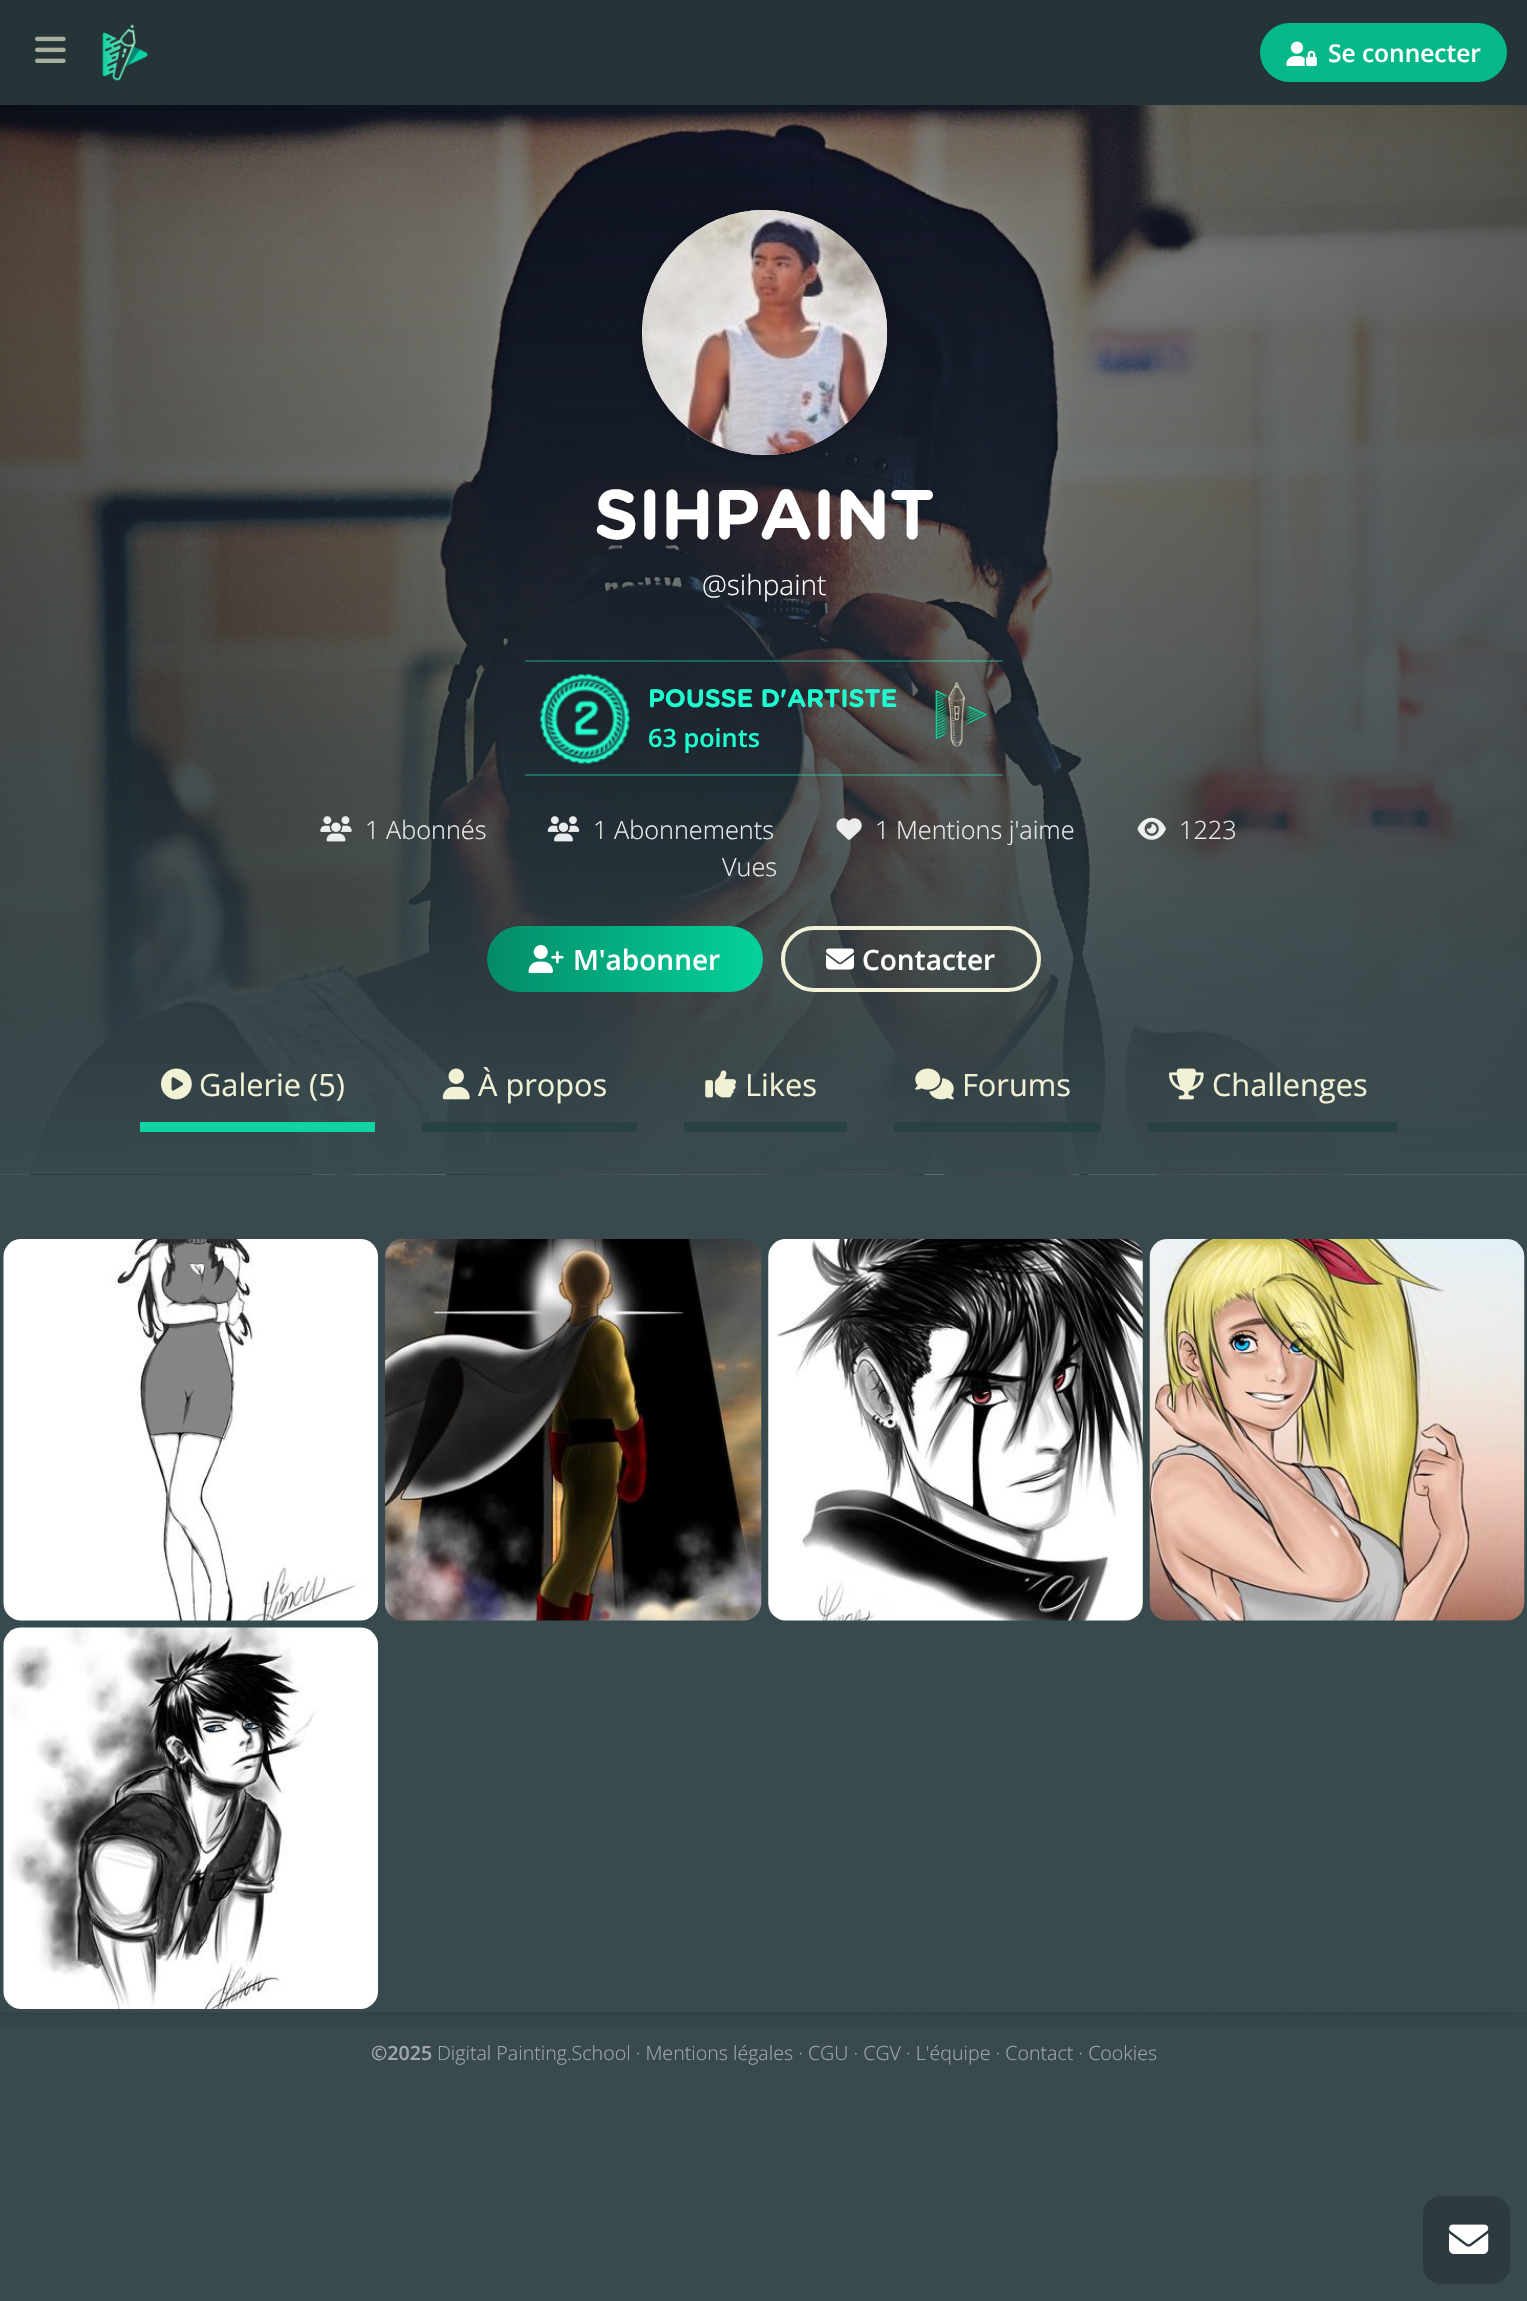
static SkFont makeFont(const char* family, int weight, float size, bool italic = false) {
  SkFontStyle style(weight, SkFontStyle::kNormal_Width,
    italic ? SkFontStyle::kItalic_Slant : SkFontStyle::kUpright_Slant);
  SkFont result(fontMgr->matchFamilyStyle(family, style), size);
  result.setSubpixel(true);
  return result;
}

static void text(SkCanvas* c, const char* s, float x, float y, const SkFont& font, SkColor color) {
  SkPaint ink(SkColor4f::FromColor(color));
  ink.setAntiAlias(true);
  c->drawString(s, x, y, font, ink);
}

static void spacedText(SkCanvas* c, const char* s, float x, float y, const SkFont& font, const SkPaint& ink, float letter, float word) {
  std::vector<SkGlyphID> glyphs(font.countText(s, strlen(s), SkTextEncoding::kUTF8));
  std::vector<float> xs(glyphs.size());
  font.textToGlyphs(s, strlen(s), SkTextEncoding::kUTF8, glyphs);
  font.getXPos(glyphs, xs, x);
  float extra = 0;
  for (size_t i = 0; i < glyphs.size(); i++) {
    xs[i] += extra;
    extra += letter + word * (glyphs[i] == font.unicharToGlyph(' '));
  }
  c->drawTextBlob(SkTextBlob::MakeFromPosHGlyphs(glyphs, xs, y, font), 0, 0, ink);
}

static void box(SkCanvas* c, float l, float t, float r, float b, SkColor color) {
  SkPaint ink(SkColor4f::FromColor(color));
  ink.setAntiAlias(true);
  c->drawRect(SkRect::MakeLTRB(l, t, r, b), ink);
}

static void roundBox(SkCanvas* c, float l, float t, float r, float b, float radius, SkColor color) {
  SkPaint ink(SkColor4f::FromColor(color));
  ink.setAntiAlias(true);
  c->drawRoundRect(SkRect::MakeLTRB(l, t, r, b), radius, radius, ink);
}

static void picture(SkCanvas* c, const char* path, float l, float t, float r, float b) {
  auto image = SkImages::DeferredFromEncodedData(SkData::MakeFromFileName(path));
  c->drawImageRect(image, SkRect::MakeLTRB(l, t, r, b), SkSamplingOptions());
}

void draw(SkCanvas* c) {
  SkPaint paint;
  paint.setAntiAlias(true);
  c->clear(0xff384a4e);
  box(c, 0, 0, 1527, 105, 0xff253437);
  picture(c, "img_01.png", 35, 36, 66, 63);
  picture(c, "img_02.png", 102, 24, 148, 81);
  roundBox(c, 1260, 23, 1507, 82, 29.5f, 0xff04b889);
  picture(c, "img_03.png", 1286, 41, 1317, 67);
  SkFont face1 = makeFont("Open Sans", 600, 24.5f);
  text(c, "Se connecter", 1328, 62, face1, 0xffffffff);
  picture(c, "img_04.png", 0, 105, 1527, 1175);
  paint.setColor(0x4d000000);
  paint.setMaskFilter(SkMaskFilter::MakeBlur(kNormal_SkBlurStyle, 9));
  c->drawRoundRect(SkRect::MakeLTRB(642, 210, 887, 455), 122.5f, 122.5f, paint);
  paint.setMaskFilter(nullptr);
  paint.setColor(0xffffffff);
  c->drawCircle(764.5f, 332.5f, 122.5f, paint);
  picture(c, "img_05.png", 642, 210, 888, 455);
  SkFont face2 = makeFont("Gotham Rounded", 700, 70);
  spacedText(c, "SIHPAINT", 594, 539, face2, paint, -0.75f, 0);
  SkFont face3 = makeFont("Open Sans", 300, 28);
  text(c, "@sihpaint", 702, 595, face3, 0xffffffff);
  box(c, 525, 660, 1003, 662, 0x4d1effd1);
  box(c, 525, 774, 1003, 776, 0x4d1effd1);
  picture(c, "img_06.png", 539, 673, 631, 765);
  SkFont face4 = makeFont("Gotham Rounded", 700, 25.25f);
  paint.setColor(0xff1effd1);
  spacedText(c, "POUSSE D'ARTISTE", 648, 707, face4, paint, -0.25f, 0);
  SkFont face5 = makeFont("Open Sans", 600, 25.25f);
  text(c, "63 points", 648, 747, face5, 0xff1effd1);
  picture(c, "img_07.png", 934, 682, 988, 747);
  picture(c, "img_08.png", 320, 816, 352, 842);
  SkFont face6 = makeFont("Open Sans", 300, 25.25f);
  text(c, "1 Abonnés", 365, 839, face6, 0xffebecec);
  picture(c, "img_09.png", 547, 816, 580, 842);
  text(c, "1 Abonnements", 593, 839, face6, 0xffebecec);
  picture(c, "img_10.png", 1137, 817, 1166, 840);
  text(c, "1223", 1179, 839, face6, 0xffebecec);
  text(c, "Vues", 722, 876, face6, 0xffebecec);
  picture(c, "img_11.png", 836, 818, 862, 840);
  text(c, "1 Mentions j'aime", 875, 839, face6, 0xffebecec);
  {
    const SkColor colors[] = {0xff048b68, 0xff04d29c};
    const float stops[] = {0, 1};
    const SkPoint ends[] = {{487, 959}, {763, 959}};
    paint.setShader(SkGradientShader::MakeLinear(ends, colors, stops, 2, SkTileMode::kClamp));
    paint.setAlpha(255);
  }
  c->drawRoundRect(SkRect::MakeLTRB(487, 926, 763, 992), 33, 33, paint);
  picture(c, "img_12.png", 528, 945, 564, 973);
  SkFont face7 = makeFont("Open Sans", 600, 28);
  text(c, "M'abonner", 573, 970, face7, 0xffffffff);
  paint.setStyle(SkPaint::kStroke_Style);
  paint.setStrokeWidth(4);
  paint.setShader(nullptr);
  paint.setColor(0xfff2f2d9);
  c->drawRoundRect(SkRect::MakeLTRB(783, 928, 1039, 990), 31, 31, paint);
  picture(c, "img_13.png", 826, 948, 854, 970);
  text(c, "Contacter", 862, 970, face7, 0xffffffff);
  picture(c, "img_14.png", 161, 1068, 192, 1100);
  SkFont face8 = makeFont("Open Sans", 400, 30.75f);
  text(c, "Galerie (5)", 199, 1096, face8, 0xfff1f1d5);
  box(c, 140, 1122, 375, 1132, 0xff0fd3a3);
  picture(c, "img_15.png", 442, 1068, 470, 1100);
  text(c, "À propos", 478, 1096, face8, 0xfff1f1d5);
  box(c, 422, 1122, 637, 1132, 0xff284243);
  picture(c, "img_16.png", 705, 1070, 736, 1098);
  text(c, "Likes", 745, 1096, face8, 0xfff1f1d5);
  box(c, 684, 1122, 847, 1132, 0xff284243);
  picture(c, "img_17.png", 915, 1068, 954, 1100);
  text(c, "Forums", 962, 1096, face8, 0xfff1f1d5);
  box(c, 894, 1122, 1101, 1132, 0xff284243);
  picture(c, "img_18.png", 1169, 1068, 1204, 1100);
  text(c, "Challenges", 1212, 1096, face8, 0xfff1f1d5);
  box(c, 1148, 1122, 1397, 1132, 0xff284243);
  picture(c, "img_19.png", 3, 1239, 378, 1621);
  picture(c, "img_20.png", 385, 1239, 762, 1621);
  picture(c, "img_21.png", 768, 1239, 1143, 1621);
  picture(c, "img_22.png", 1149, 1239, 1525, 1621);
  picture(c, "img_23.png", 3, 1627, 378, 2009);
  picture(c, "img_24.png", 0, 2012, 1527, 2027);
  SkFont face9 = makeFont("Open Sans", 600, 19.6f);
  text(c, "©2025", 371, 2060, face9, 0xffa1a8a9);
  SkFont face10 = makeFont("Open Sans", 300, 19.6f);
  text(c, "Digital Painting.School · Mentions légales · CGU · CGV · L'équipe · Contact · Cookies", 437, 2060, face10, 0xffa1a8a9);
  roundBox(c, 1423, 2196, 1510, 2284, 18, 0xff2d3b3e);
  picture(c, "img_25.png", 1449, 2224, 1489, 2254);
}
